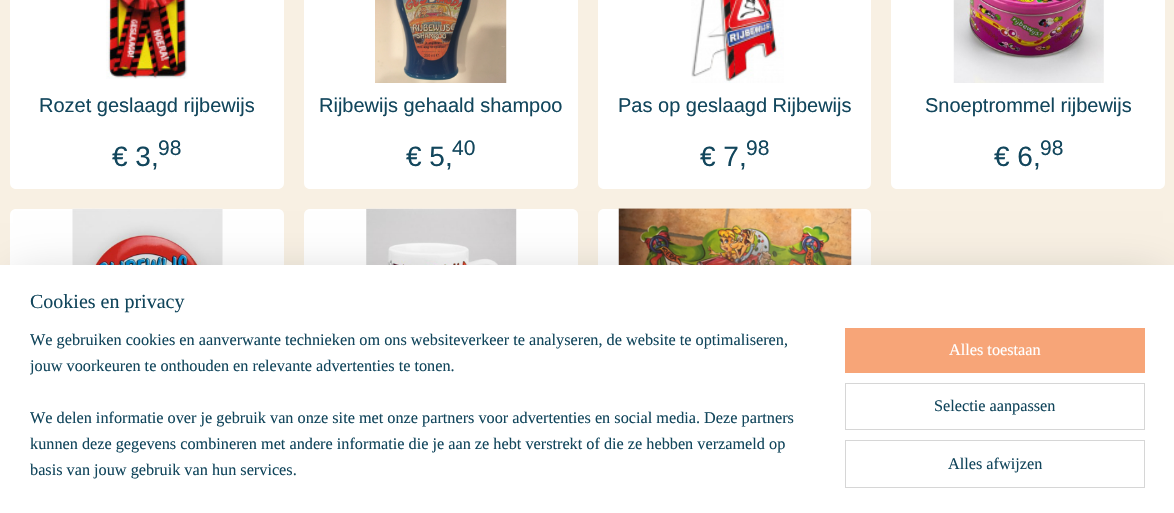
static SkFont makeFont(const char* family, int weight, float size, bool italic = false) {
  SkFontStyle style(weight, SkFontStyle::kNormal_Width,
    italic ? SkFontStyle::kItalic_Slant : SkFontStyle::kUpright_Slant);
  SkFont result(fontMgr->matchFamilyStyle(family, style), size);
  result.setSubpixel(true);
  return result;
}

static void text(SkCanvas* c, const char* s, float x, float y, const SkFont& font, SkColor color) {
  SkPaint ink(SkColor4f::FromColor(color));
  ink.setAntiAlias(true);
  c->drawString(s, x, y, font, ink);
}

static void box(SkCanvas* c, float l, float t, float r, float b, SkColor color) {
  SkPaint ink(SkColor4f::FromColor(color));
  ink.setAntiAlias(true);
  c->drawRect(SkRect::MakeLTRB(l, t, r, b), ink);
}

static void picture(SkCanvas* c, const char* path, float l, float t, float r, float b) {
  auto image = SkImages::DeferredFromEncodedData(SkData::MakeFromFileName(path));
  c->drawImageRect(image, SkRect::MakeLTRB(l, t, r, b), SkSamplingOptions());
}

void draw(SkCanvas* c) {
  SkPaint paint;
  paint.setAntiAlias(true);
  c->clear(0xfff8f0e3);
  box(c, 10, 0, 284, 84, 0xffffffff);
  picture(c, "img_01.png", 106, 0, 188, 79);
  paint.setColor(0xffffffff);
  c->drawPath(SkPathBuilder().moveTo(10, 84).lineTo(284, 84).lineTo(284, 183).cubicTo(284, 186.5f, 281.5f, 189, 278, 189).lineTo(16, 189).cubicTo(12.5f, 189, 10, 186.5f, 10, 183).close().detach(), paint);
  SkFont face1 = makeFont("Liberation Sans", 400, 20);
  text(c, "Rozet geslaagd rijbewijs", 39, 112, face1, 0xff12465c);
  SkFont face2 = makeFont("Liberation Sans", 400, 28);
  text(c, "€ 3,", 112, 166, face2, 0xff12465c);
  SkFont face3 = makeFont("Liberation Sans", 400, 21);
  text(c, "98", 158, 155, face3, 0xff12465c);
  box(c, 304, 0, 578, 84, 0xffffffff);
  picture(c, "img_02.png", 375, 0, 507, 83);
  c->drawPath(SkPathBuilder().moveTo(304, 84).lineTo(578, 84).lineTo(578, 183).cubicTo(578, 186.5f, 575.5f, 189, 572, 189).lineTo(310, 189).cubicTo(306.5f, 189, 304, 186.5f, 304, 183).close().detach(), paint);
  text(c, "Rijbewijs gehaald shampoo", 319, 112, face1, 0xff12465c);
  text(c, "€ 5,", 406, 166, face2, 0xff12465c);
  text(c, "40", 452, 155, face3, 0xff12465c);
  box(c, 598, 0, 871, 84, 0xffffffff);
  picture(c, "img_03.png", 691, 0, 784, 83);
  c->drawPath(SkPathBuilder().moveTo(598, 84).lineTo(871, 84).lineTo(871, 183).cubicTo(871, 186.5f, 868.5f, 189, 865, 189).lineTo(604, 189).cubicTo(600.5f, 189, 598, 186.5f, 598, 183).close().detach(), paint);
  text(c, "Pas op geslaagd Rijbewijs", 618, 112, face1, 0xff12465c);
  text(c, "€ 7,", 700, 166, face2, 0xff12465c);
  text(c, "98", 746, 155, face3, 0xff12465c);
  box(c, 891, 0, 1165, 84, 0xffffffff);
  picture(c, "img_04.png", 953, 0, 1104, 83);
  c->drawPath(SkPathBuilder().moveTo(891, 84).lineTo(1165, 84).lineTo(1165, 183).cubicTo(1165, 186.5f, 1162.5f, 189, 1159, 189).lineTo(897, 189).cubicTo(893.5f, 189, 891, 186.5f, 891, 183).close().detach(), paint);
  text(c, "Snoeptrommel rijbewijs", 925, 112, face1, 0xff12465c);
  text(c, "€ 6,", 994, 166, face2, 0xff12465c);
  text(c, "98", 1040, 155, face3, 0xff12465c);
  c->drawPath(SkPathBuilder().moveTo(16, 209).lineTo(278, 209).cubicTo(281.5f, 209, 284, 211.5f, 284, 215).lineTo(284, 384).lineTo(10, 384).lineTo(10, 215).cubicTo(10, 211.5f, 12.5f, 209, 16, 209).close().detach(), paint);
  picture(c, "img_05.png", 72, 208, 223, 265);
  c->drawPath(SkPathBuilder().moveTo(310, 209).lineTo(572, 209).cubicTo(575.5f, 209, 578, 211.5f, 578, 215).lineTo(578, 384).lineTo(304, 384).lineTo(304, 215).cubicTo(304, 211.5f, 306.5f, 209, 310, 209).close().detach(), paint);
  picture(c, "img_06.png", 366, 208, 517, 265);
  c->drawPath(SkPathBuilder().moveTo(604, 209).lineTo(865, 209).cubicTo(868.5f, 209, 871, 211.5f, 871, 215).lineTo(871, 384).lineTo(598, 384).lineTo(598, 215).cubicTo(598, 211.5f, 600.5f, 209, 604, 209).close().detach(), paint);
  picture(c, "img_07.png", 618, 208, 852, 265);
  paint.setColor(0x33000000);
  paint.setMaskFilter(SkMaskFilter::MakeBlur(kNormal_SkBlurStyle, 22.5f));
  c->drawRect(SkRect::MakeLTRB(13, 278, 1163, 501), paint);
  paint.setMaskFilter(nullptr);
  box(c, 0, 265, 1174, 513, 0xffffffff);
  SkFont face4 = makeFont("Liberation Serif", 400, 20);
  text(c, "Cookies en privacy", 30, 308, face4, 0xff12465c);
  SkFont face5 = makeFont("Liberation Serif", 400, 16.25f);
  text(c, "We gebruiken cookies en aanverwante technieken om ons websiteverkeer te analyseren, de website te optimaliseren,", 30, 345, face5, 0xff12465c);
  c->save();
  c->clipRect(SkRect::MakeLTRB(30, 328, 815, 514));
  text(c, "jouw voorkeuren te onthouden en relevante advertenties te tonen.", 30, 371, face5, 0xff12465c);
  c->restore();
  text(c, "We delen informatie over je gebruik van onze site met onze partners voor advertenties en social media. Deze partners", 30, 423, face5, 0xff12465c);
  text(c, "kunnen deze gegevens combineren met andere informatie die je aan ze hebt verstrekt of die ze hebben verzameld op", 30, 449, face5, 0xff12465c);
  text(c, "basis van jouw gebruik van hun services.", 30, 475, face5, 0xff12465c);
  box(c, 845, 328, 1145, 373, 0xfff7a578);
  text(c, "Alles toestaan", 949, 355, face5, 0xffffffff);
  paint.setStyle(SkPaint::kStroke_Style);
  paint.setStrokeWidth(1);
  paint.setColor(0xffd6d6d6);
  c->drawRect(SkRect::MakeLTRB(845.5f, 383.5f, 1144.5f, 429.5f), paint);
  text(c, "Selectie aanpassen", 934, 411, face5, 0xff12465c);
  c->drawRect(SkRect::MakeLTRB(845.5f, 440.5f, 1144.5f, 487.5f), paint);
  text(c, "Alles afwijzen", 948, 469, face5, 0xff12465c);
}
